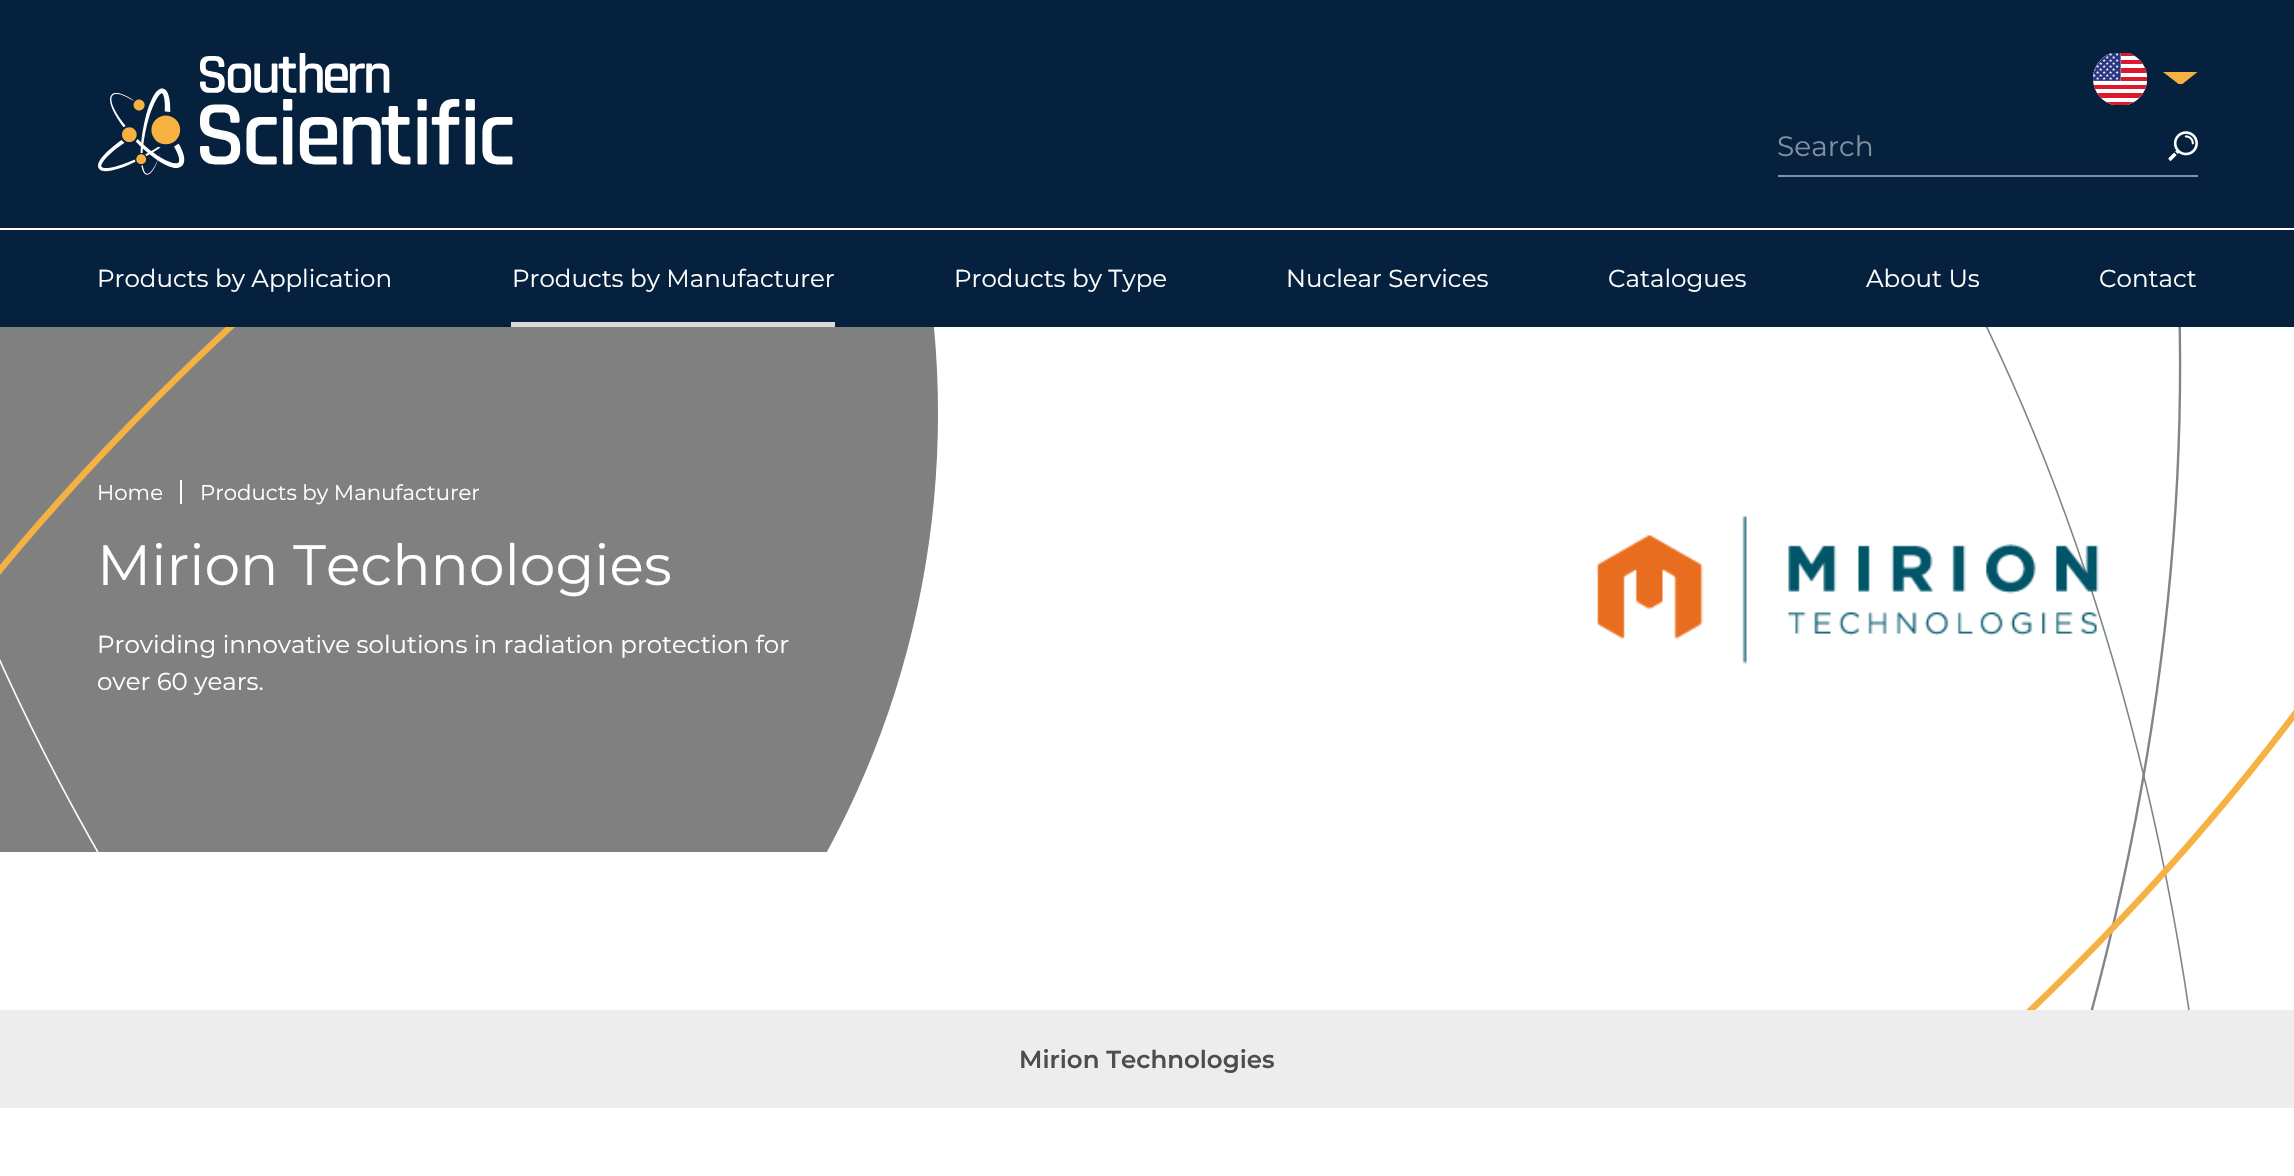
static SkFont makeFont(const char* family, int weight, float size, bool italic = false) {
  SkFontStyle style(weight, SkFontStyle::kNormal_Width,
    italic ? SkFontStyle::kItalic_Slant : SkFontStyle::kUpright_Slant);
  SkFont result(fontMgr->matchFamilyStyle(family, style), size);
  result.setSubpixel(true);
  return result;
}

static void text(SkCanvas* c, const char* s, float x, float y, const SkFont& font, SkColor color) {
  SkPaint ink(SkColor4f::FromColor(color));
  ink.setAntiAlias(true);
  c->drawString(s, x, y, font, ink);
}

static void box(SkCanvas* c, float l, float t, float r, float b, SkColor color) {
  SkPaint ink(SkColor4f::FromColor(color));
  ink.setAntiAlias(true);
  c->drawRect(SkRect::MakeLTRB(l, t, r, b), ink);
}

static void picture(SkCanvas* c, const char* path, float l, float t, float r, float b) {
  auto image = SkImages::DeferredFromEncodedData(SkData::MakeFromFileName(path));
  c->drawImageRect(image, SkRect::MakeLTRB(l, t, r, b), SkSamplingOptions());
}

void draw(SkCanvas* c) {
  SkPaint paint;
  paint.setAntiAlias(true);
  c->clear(0xff06213e);
  box(c, 0, 228, 2294, 230, 0xffffffff);
  picture(c, "img_01.png", 98, 53, 513, 175);
  picture(c, "img_02.png", 2093, 53, 2147, 105);
  c->save();
  c->clipRect(SkRect::MakeLTRB(2163, 72, 2198, 84));
  paint.setColor(0xfff5b141);
  c->drawPath(SkPathBuilder().moveTo(2180.5f, 85.5f).lineTo(2197.5f, 72).lineTo(2163, 72).close().detach(), paint);
  c->restore();
  box(c, 1778, 175, 2198, 177, 0xff83909f);
  SkFont face1 = makeFont("Montserrat", 400, 28);
  text(c, "Search", 1777, 156, face1, 0xff83909f);
  picture(c, "img_03.png", 2168, 131, 2198, 162);
  SkFont face2 = makeFont("Montserrat", 400, 24.5f);
  text(c, "Products by Application", 97, 287, face2, 0xffffffff);
  box(c, 511, 322, 835, 327, 0xffdbdbdb);
  text(c, "Products by Manufacturer", 512, 287, face2, 0xffffffff);
  text(c, "Products by Type", 954, 287, face2, 0xffffffff);
  text(c, "Nuclear Services", 1286, 287, face2, 0xffffffff);
  text(c, "Catalogues", 1608, 287, face2, 0xffffffff);
  text(c, "About Us", 1866, 287, face2, 0xffffffff);
  text(c, "Contact", 2099, 287, face2, 0xffffffff);
  box(c, 0, 327, 2294, 1010, 0xffffffff);
  c->save();
  c->clipRect(SkRect::MakeLTRB(0, 327, 2294, 852));
  paint.setColor(0xff808080);
  c->drawOval(SkRect::MakeLTRB(-742, -468.5f, 938, 1295.5f), paint);
  c->restore();
  picture(c, "img_04.png", 0, 327, 2294, 1010);
  box(c, 180, 480, 182, 504, 0xffffffff);
  SkFont face3 = makeFont("Montserrat", 400, 21.25f);
  text(c, "Home", 97, 500, face3, 0xffffffff);
  text(c, "Products by Manufacturer", 200, 500, face3, 0xffffffff);
  SkFont face4 = makeFont("Montserrat", 400, 56.75f);
  text(c, "Mirion Technologies", 97, 585, face4, 0xffffffff);
  text(c, "Providing innovative solutions in radiation protection for", 97, 653, face2, 0xffffffff);
  text(c, "over 60 years.", 97, 690, face2, 0xffffffff);
  picture(c, "img_05.png", 1597, 515, 2099, 664);
  box(c, 0, 1010, 2294, 1108, 0xffededed);
  SkFont face5 = makeFont("Montserrat", 600, 24.5f);
  text(c, "Mirion Technologies", 1019, 1068, face5, 0xff4d4d4d);
  box(c, 0, 1108, 2294, 1176, 0xffffffff);
}
